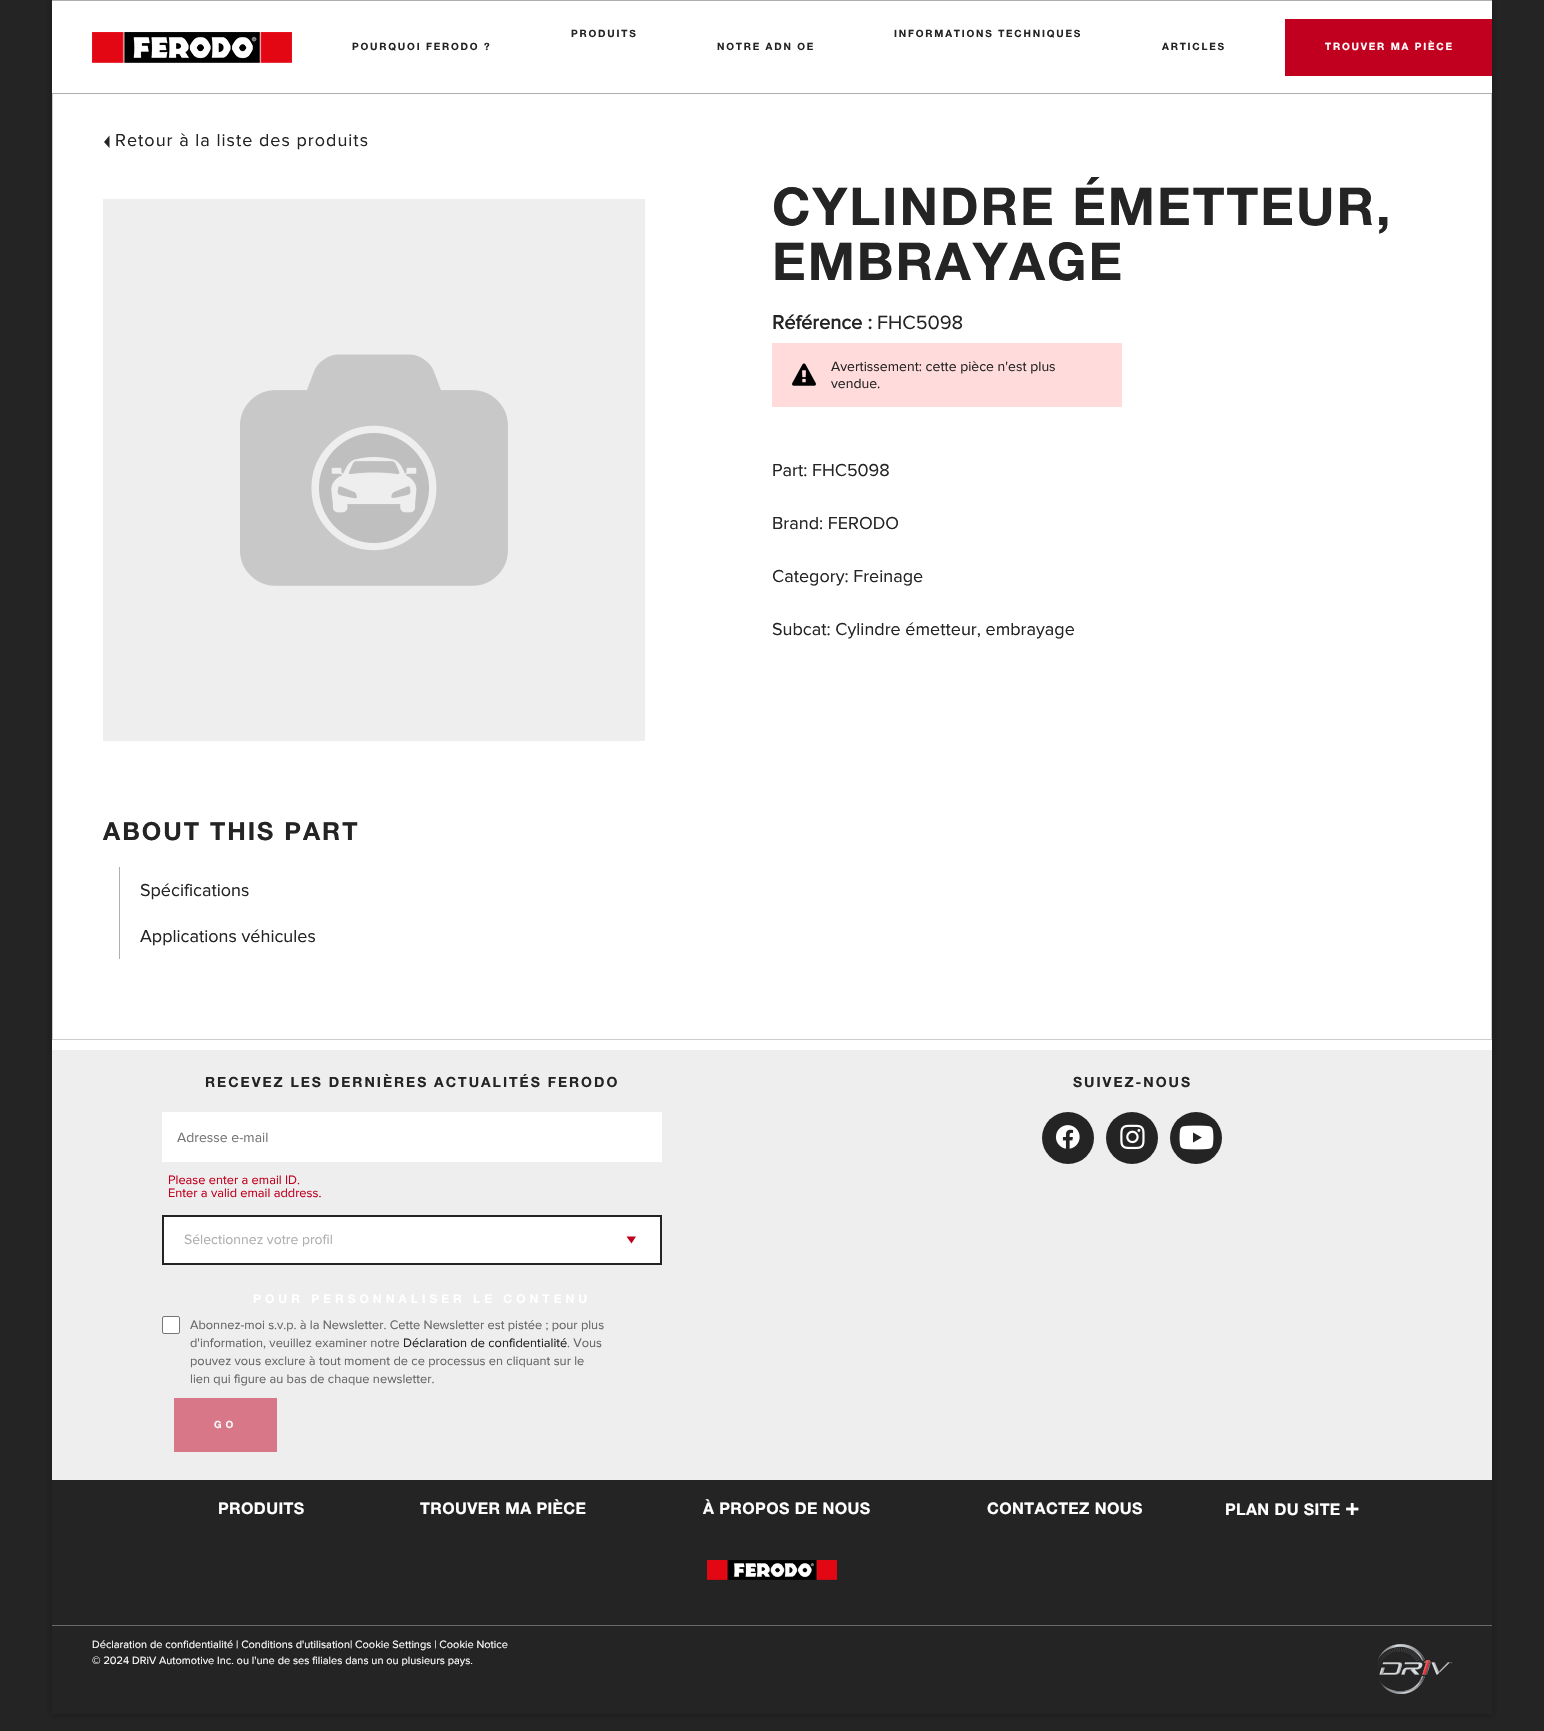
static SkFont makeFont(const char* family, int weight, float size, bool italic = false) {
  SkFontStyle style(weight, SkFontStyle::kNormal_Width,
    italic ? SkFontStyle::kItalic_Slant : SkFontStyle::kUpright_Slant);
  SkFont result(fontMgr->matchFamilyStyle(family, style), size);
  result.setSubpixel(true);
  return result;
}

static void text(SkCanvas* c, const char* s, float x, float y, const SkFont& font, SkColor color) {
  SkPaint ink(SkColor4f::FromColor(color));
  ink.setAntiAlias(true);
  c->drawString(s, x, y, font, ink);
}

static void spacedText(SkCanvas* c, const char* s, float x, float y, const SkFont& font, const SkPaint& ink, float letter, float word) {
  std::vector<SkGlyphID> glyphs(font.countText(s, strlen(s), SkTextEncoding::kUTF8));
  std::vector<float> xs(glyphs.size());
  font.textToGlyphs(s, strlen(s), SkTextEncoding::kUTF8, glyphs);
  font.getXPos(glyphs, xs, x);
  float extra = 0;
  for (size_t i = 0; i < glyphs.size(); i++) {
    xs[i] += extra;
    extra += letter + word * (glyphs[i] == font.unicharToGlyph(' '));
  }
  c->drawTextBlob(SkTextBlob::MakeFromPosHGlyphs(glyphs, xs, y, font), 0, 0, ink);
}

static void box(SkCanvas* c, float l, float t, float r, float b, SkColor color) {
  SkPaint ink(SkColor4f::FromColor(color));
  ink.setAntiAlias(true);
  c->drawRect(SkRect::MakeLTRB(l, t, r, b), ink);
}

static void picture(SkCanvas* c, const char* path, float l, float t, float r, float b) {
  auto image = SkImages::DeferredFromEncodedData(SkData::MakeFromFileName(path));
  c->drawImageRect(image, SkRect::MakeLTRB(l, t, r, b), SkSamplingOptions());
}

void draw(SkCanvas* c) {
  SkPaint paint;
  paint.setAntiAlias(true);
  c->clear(0xff242424);
  paint.setColor(0xff181818);
  paint.setMaskFilter(SkMaskFilter::MakeBlur(kNormal_SkBlurStyle, 5));
  c->drawRect(SkRect::MakeLTRB(52, 0, 1492, 1714), paint);
  paint.setMaskFilter(nullptr);
  box(c, 52, 94, 1492, 1050, 0xffffffff);
  paint.setStyle(SkPaint::kStroke_Style);
  paint.setStrokeWidth(1);
  paint.setColor(0xffcccccc);
  c->drawRect(SkRect::MakeLTRB(52.5f, 78.5f, 1491.5f, 1039.5f), paint);
  box(c, 52, 1, 1492, 93, 0xffffffff);
  box(c, 52, 0, 1492, 1, 0xffaeaeae);
  box(c, 52, 93, 1492, 94, 0xffaeaeae);
  picture(c, "img_01.png", 92, 32, 292, 63);
  SkFont face1 = makeFont("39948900", 400, 10);
  paint.setStyle(SkPaint::kFill_Style);
  paint.setColor(0xff242424);
  spacedText(c, "PRODUITS", 571, 37, face1, paint, 1.8f, 0);
  spacedText(c, "INFORMATIONS TECHNIQUES", 894, 37, face1, paint, 1.8f, 0);
  spacedText(c, "POURQUOI FERODO ?", 352, 50, face1, paint, 1.8f, 0);
  spacedText(c, "NOTRE ADN OE", 717, 50, face1, paint, 1.8f, 0);
  spacedText(c, "ARTICLES", 1162, 50, face1, paint, 1.8f, 0);
  box(c, 1285, 19, 1492, 76, 0xffc1001f);
  paint.setColor(0xffffffff);
  spacedText(c, "TROUVER MA PIÈCE", 1325, 50, face1, paint, 1.8f, 0);
  paint.setColor(0xff242424);
  c->drawPath(SkPathBuilder().moveTo(104, 142).lineTo(109.5f, 135.5f).lineTo(109.5f, 148).close().detach(), paint);
  SkFont face2 = makeFont("Proxima Nova", 400, 18);
  spacedText(c, "Retour à la liste des produits", 115, 146, face2, paint, 1, 0);
  picture(c, "img_02.png", 103, 199, 645, 741);
  SkFont face3 = makeFont("39948900", 400, 52);
  spacedText(c, "CYLINDRE ÉMETTEUR,", 772, 225, face3, paint, 2, 0);
  spacedText(c, "EMBRAYAGE", 772, 280, face3, paint, 2, 0);
  SkFont face4 = makeFont("Proxima Nova", 700, 20);
  text(c, "Référence :", 772, 329, face4, 0xff242424);
  SkFont face5 = makeFont("Proxima Nova", 400, 20);
  text(c, "FHC5098", 877, 329, face5, 0xff242424);
  box(c, 772, 343, 1122, 407, 0xffffdbdb);
  picture(c, "img_03.png", 792, 363, 816, 386);
  SkFont face6 = makeFont("Proxima Nova", 400, 14);
  text(c, "Avertissement: cette pièce n'est plus", 831, 371, face6, 0xff242424);
  text(c, "vendue.", 831, 388, face6, 0xff242424);
  text(c, "Part: FHC5098", 772, 476, face2, 0xff242424);
  text(c, "Brand: FERODO", 772, 529, face2, 0xff242424);
  text(c, "Category: Freinage", 772, 582, face2, 0xff242424);
  text(c, "Subcat: Cylindre émetteur, embrayage", 772, 635, face2, 0xff242424);
  SkFont face7 = makeFont("39948900", 400, 25);
  spacedText(c, "ABOUT THIS PART", 103, 840, face7, paint, 2, 0);
  box(c, 119, 867, 120, 959, 0xffaeaeae);
  text(c, "Spécifications", 140, 896, face2, 0xff242424);
  text(c, "Applications véhicules", 140, 942, face2, 0xff242424);
  box(c, 52, 1050, 1492, 1480, 0xffeeeeee);
  SkFont face8 = makeFont("39948900", 400, 14);
  spacedText(c, "RECEVEZ LES DERNIÈRES ACTUALITÉS FERODO", 205, 1087, face8, paint, 2, 0);
  box(c, 162, 1112, 662, 1162, 0xffffffff);
  text(c, "Adresse e-mail", 177, 1142, face6, 0xff757575);
  SkFont face9 = makeFont("Proxima Nova", 400, 12.8f);
  text(c, "Please enter a email ID.", 168, 1184, face9, 0xffc1001f);
  text(c, "Enter a valid email address.", 168, 1197, face9, 0xffc1001f);
  box(c, 164, 1217, 660, 1263, 0xffffffff);
  paint.setColor(0xffc1001f);
  c->drawPath(SkPathBuilder().moveTo(626.5f, 1236.5f).lineTo(636, 1236.5f).lineTo(631.5f, 1243.5f).close().detach(), paint);
  paint.setStyle(SkPaint::kStroke_Style);
  paint.setStrokeWidth(2);
  paint.setColor(0xff242424);
  c->drawRect(SkRect::MakeLTRB(163, 1216, 661, 1264), paint);
  text(c, "Sélectionnez votre profil", 184, 1244, face6, 0xffaeaeae);
  SkFont face10 = makeFont("39948900", 400, 12);
  paint.setStyle(SkPaint::kFill_Style);
  paint.setColor(0xffffffff);
  spacedText(c, "POUR PERSONNALISER LE CONTENU", 253, 1303, face10, paint, 4, 0);
  c->drawRoundRect(SkRect::MakeLTRB(162.5f, 1316.5f, 179.5f, 1333.5f), 1.5f, 1.5f, paint);
  paint.setStyle(SkPaint::kStroke_Style);
  paint.setStrokeWidth(1);
  paint.setColor(0xff767676);
  c->drawRoundRect(SkRect::MakeLTRB(162.5f, 1316.5f, 179.5f, 1333.5f), 1.5f, 1.5f, paint);
  text(c, "Abonnez-moi s.v.p. à la Newsletter. Cette Newsletter est pistée ; pour plus", 190, 1329, face9, 0xff666666);
  text(c, "d'information, veuillez examiner notre", 190, 1347, face9, 0xff666666);
  text(c, "Déclaration de confidentialité", 403, 1347, face9, 0xff242424);
  text(c, ". Vous", 567, 1347, face9, 0xff666666);
  text(c, "pouvez vous exclure à tout moment de ce processus en cliquant sur le", 190, 1365, face9, 0xff666666);
  text(c, "lien qui figure au bas de chaque newsletter.", 190, 1383, face9, 0xff666666);
  box(c, 174, 1398, 277, 1452, 0xffd87787);
  paint.setStyle(SkPaint::kFill_Style);
  paint.setColor(0xfff7f7f7);
  spacedText(c, "GO", 214, 1428, face1, paint, 4, 0);
  paint.setColor(0xff242424);
  spacedText(c, "SUIVEZ-NOUS", 1073, 1087, face8, paint, 2, 0);
  c->drawCircle(1068, 1138, 26, paint);
  picture(c, "img_04.png", 1055, 1125, 1080, 1149);
  c->drawCircle(1132, 1138, 26, paint);
  picture(c, "img_05.png", 1120, 1124, 1145, 1150);
  c->drawCircle(1196, 1138, 26, paint);
  picture(c, "img_06.png", 1179, 1125, 1214, 1150);
  box(c, 52, 1480, 1492, 1714, 0xff242424);
  SkFont face11 = makeFont("39948900", 400, 16);
  paint.setColor(0xffffffff);
  spacedText(c, "PRODUITS", 218, 1514, face11, paint, 0.4f, 0);
  spacedText(c, "TROUVER MA PIÈCE", 420, 1514, face11, paint, 0.4f, 0);
  spacedText(c, "À PROPOS DE NOUS", 703, 1514, face11, paint, 0.4f, 0);
  spacedText(c, "CONTACTEZ NOUS", 987, 1514, face11, paint, 0.4f, 0);
  spacedText(c, "PLAN DU SITE", 1225, 1515, face11, paint, 0.4f, 0);
  SkFont face12 = makeFont("39948900", 400, 24);
  spacedText(c, "+", 1345, 1515, face12, paint, 0.4f, 0);
  picture(c, "img_07.png", 707, 1560, 837, 1580);
  box(c, 52, 1625, 1492, 1626, 0xff696969);
  SkFont face13 = makeFont("Proxima Nova", 400, 11);
  text(c, "Déclaration de confidentialité | Conditions d'utilisation| Cookie Settings | Cookie Notice", 92, 1648, face13, 0xffffffff);
  text(c, "© 2024 DRiV Automotive Inc. ou l'une de ses filiales dans un ou plusieurs pays.", 92, 1664, face13, 0xffffffff);
  picture(c, "img_08.png", 1377, 1644, 1452, 1694);
}
